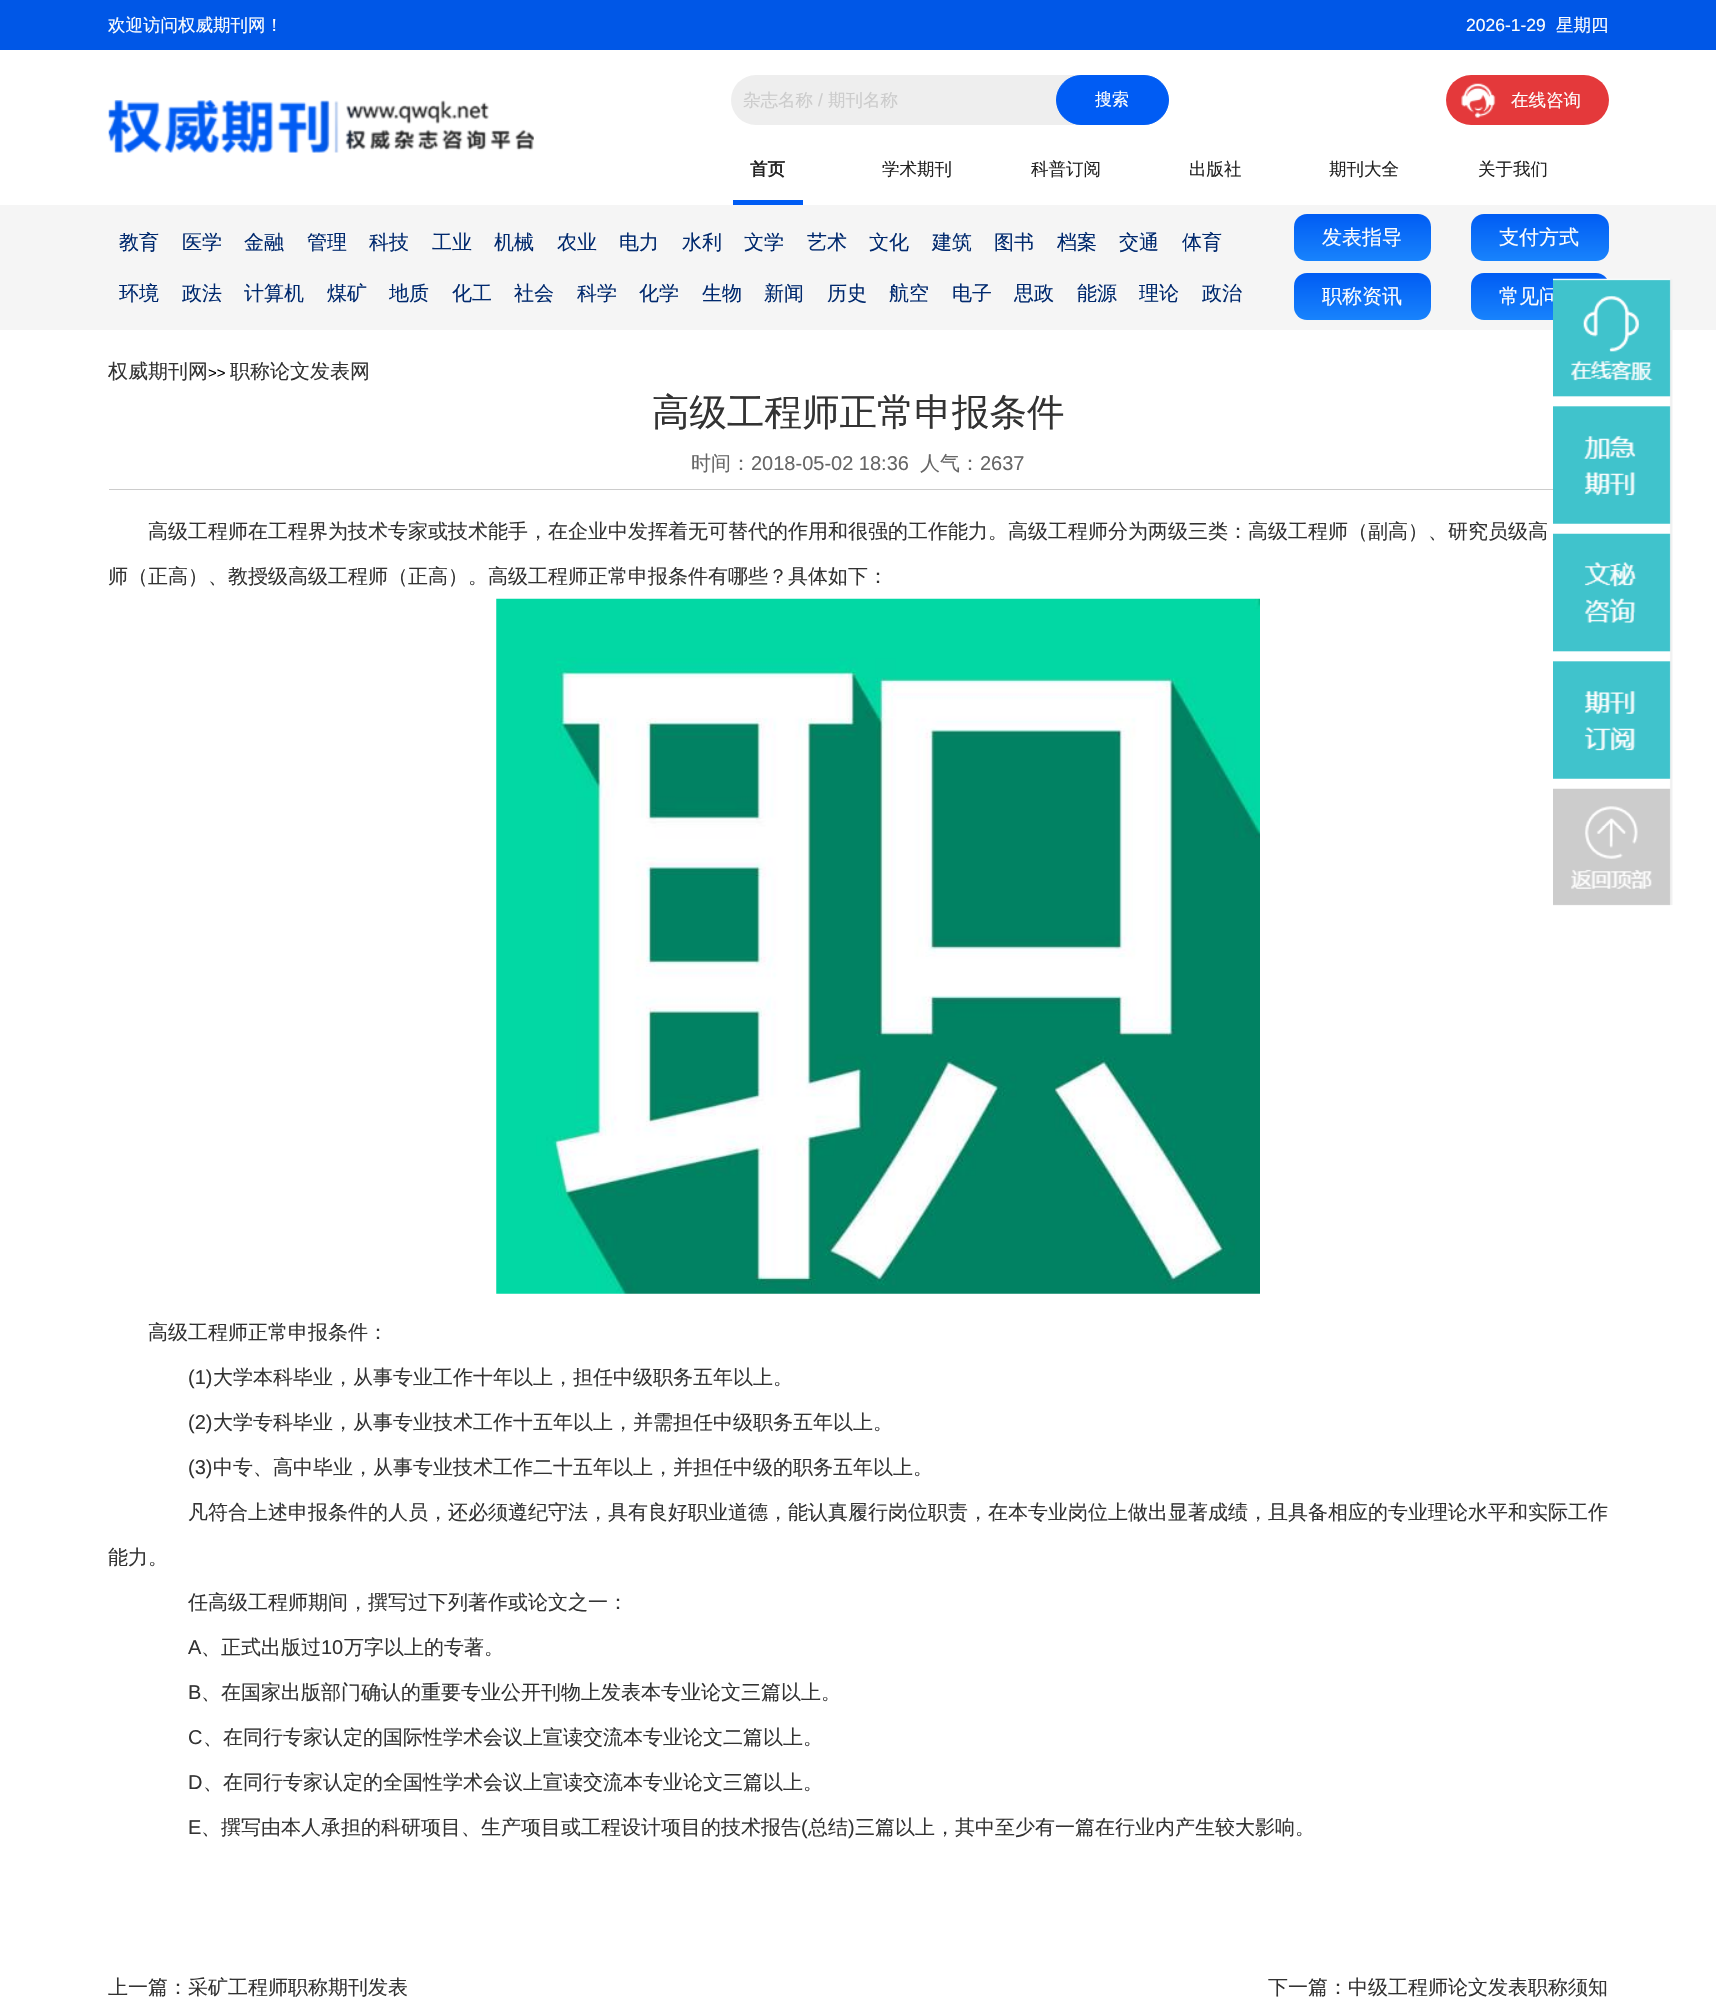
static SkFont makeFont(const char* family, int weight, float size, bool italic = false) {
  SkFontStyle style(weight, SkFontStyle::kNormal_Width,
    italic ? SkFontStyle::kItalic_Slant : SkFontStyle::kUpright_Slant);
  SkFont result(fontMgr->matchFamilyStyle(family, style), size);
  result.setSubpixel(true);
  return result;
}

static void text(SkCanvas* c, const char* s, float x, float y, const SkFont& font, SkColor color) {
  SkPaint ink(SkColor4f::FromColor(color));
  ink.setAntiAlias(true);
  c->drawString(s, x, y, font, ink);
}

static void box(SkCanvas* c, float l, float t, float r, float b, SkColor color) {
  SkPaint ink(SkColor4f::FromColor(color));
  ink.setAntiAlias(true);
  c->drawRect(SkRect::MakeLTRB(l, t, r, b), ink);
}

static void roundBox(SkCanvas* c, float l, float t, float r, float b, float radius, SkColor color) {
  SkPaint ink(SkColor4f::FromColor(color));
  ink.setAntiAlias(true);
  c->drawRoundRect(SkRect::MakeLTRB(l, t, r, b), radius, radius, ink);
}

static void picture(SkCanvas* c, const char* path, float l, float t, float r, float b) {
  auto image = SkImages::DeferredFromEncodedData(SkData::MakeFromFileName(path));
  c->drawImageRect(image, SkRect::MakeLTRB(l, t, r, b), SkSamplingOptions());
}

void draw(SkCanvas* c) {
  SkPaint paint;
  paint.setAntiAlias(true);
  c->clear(0xffffffff);
  box(c, 0, 0, 1716, 50, 0xff0057e7);
  SkFont face1 = makeFont("WenQuanYi Zen Hei", 500, 17.5f);
  text(c, "欢迎访问权威期刊网！", 108, 31, face1, 0xfffefefe);
  SkFont face2 = makeFont("Liberation Sans", 400, 17.5f);
  text(c, "2026-1-29", 1466, 31, face2, 0xfffefefe);
  text(c, "星期四", 1556, 31, face1, 0xfffefefe);
  picture(c, "img_01.png", 108, 100, 534, 153);
  roundBox(c, 731, 75, 1169, 125, 25, 0xffeeeeee);
  text(c, "杂志名称", 743, 106, face1, 0xffcccccc);
  text(c, "/", 818, 106, face2, 0xffcccccc);
  text(c, "期刊名称", 828, 106, face1, 0xffcccccc);
  paint.setColor(0xff005cf4);
  c->drawRoundRect(SkRect::MakeLTRB(1056.5f, 75.5f, 1168.5f, 124.5f), 24.5f, 24.5f, paint);
  paint.setStyle(SkPaint::kStroke_Style);
  paint.setStrokeWidth(1);
  c->drawRoundRect(SkRect::MakeLTRB(1056.5f, 75.5f, 1168.5f, 124.5f), 24.5f, 24.5f, paint);
  SkFont face3 = makeFont("WenQuanYi Zen Hei", 500, 17);
  text(c, "搜索", 1095, 105, face3, 0xfffefefe);
  roundBox(c, 1446, 75, 1609, 125, 25, 0xffe4393b);
  picture(c, "img_02.png", 1461, 83, 1496, 118);
  text(c, "在线咨询", 1511, 106, face1, 0xfffefefe);
  SkFont face4 = makeFont("WenQuanYi Zen Hei", 700, 17.5f);
  text(c, "首页", 750, 175, face4, 0xff222222);
  box(c, 733, 200, 803, 205, 0xff005cf4);
  text(c, "学术期刊", 882, 175, face1, 0xff222222);
  text(c, "科普订阅", 1031, 175, face1, 0xff222222);
  text(c, "出版社", 1189, 175, face1, 0xff222222);
  text(c, "期刊大全", 1329, 175, face1, 0xff222222);
  text(c, "关于我们", 1478, 175, face1, 0xff222222);
  box(c, 0, 205, 1716, 330, 0xfff5f5f5);
  SkFont face5 = makeFont("WenQuanYi Zen Hei", 500, 20);
  text(c, "教育", 119, 249, face5, 0xff00296e);
  text(c, "医学", 182, 249, face5, 0xff00296e);
  text(c, "金融", 244, 249, face5, 0xff00296e);
  text(c, "管理", 307, 249, face5, 0xff00296e);
  text(c, "科技", 369, 249, face5, 0xff00296e);
  text(c, "工业", 432, 249, face5, 0xff00296e);
  text(c, "机械", 494, 249, face5, 0xff00296e);
  text(c, "农业", 557, 249, face5, 0xff00296e);
  text(c, "电力", 619, 249, face5, 0xff00296e);
  text(c, "水利", 682, 249, face5, 0xff00296e);
  text(c, "文学", 744, 249, face5, 0xff00296e);
  text(c, "艺术", 807, 249, face5, 0xff00296e);
  text(c, "文化", 869, 249, face5, 0xff00296e);
  text(c, "建筑", 932, 249, face5, 0xff00296e);
  text(c, "图书", 994, 249, face5, 0xff00296e);
  text(c, "档案", 1057, 249, face5, 0xff00296e);
  text(c, "交通", 1119, 249, face5, 0xff00296e);
  text(c, "体育", 1182, 249, face5, 0xff00296e);
  text(c, "环境", 119, 300, face5, 0xff00296e);
  text(c, "政法", 182, 300, face5, 0xff00296e);
  text(c, "计算机", 244, 300, face5, 0xff00296e);
  text(c, "煤矿", 327, 300, face5, 0xff00296e);
  text(c, "地质", 389, 300, face5, 0xff00296e);
  text(c, "化工", 452, 300, face5, 0xff00296e);
  text(c, "社会", 514, 300, face5, 0xff00296e);
  text(c, "科学", 577, 300, face5, 0xff00296e);
  text(c, "化学", 639, 300, face5, 0xff00296e);
  text(c, "生物", 702, 300, face5, 0xff00296e);
  text(c, "新闻", 764, 300, face5, 0xff00296e);
  text(c, "历史", 827, 300, face5, 0xff00296e);
  text(c, "航空", 889, 300, face5, 0xff00296e);
  text(c, "电子", 952, 300, face5, 0xff00296e);
  text(c, "思政", 1014, 300, face5, 0xff00296e);
  text(c, "能源", 1077, 300, face5, 0xff00296e);
  text(c, "理论", 1139, 300, face5, 0xff00296e);
  text(c, "政治", 1202, 300, face5, 0xff00296e);
  paint.setStyle(SkPaint::kFill_Style);
  {
    const SkColor colors[] = {0xff1883fc, 0xff005cf4};
    const float stops[] = {0, 1};
    const SkPoint ends[] = {{1363, 261}, {1363, 214}};
    paint.setShader(SkGradientShader::MakeLinear(ends, colors, stops, 2, SkTileMode::kClamp));
    paint.setAlpha(255);
  }
  c->drawRoundRect(SkRect::MakeLTRB(1294, 214, 1431, 261), 13, 13, paint);
  text(c, "发表指导", 1322, 244, face5, 0xfffefefe);
  {
    const SkColor colors[] = {0xff1883fc, 0xff005cf4};
    const float stops[] = {0, 1};
    const SkPoint ends[] = {{1540, 261}, {1540, 214}};
    paint.setShader(SkGradientShader::MakeLinear(ends, colors, stops, 2, SkTileMode::kClamp));
    paint.setAlpha(255);
  }
  c->drawRoundRect(SkRect::MakeLTRB(1471, 214, 1609, 261), 13, 13, paint);
  text(c, "支付方式", 1499, 244, face5, 0xfffefefe);
  {
    const SkColor colors[] = {0xff1883fc, 0xff005cf4};
    const float stops[] = {0, 1};
    const SkPoint ends[] = {{1363, 320}, {1363, 273}};
    paint.setShader(SkGradientShader::MakeLinear(ends, colors, stops, 2, SkTileMode::kClamp));
    paint.setAlpha(255);
  }
  c->drawRoundRect(SkRect::MakeLTRB(1294, 273, 1431, 320), 13, 13, paint);
  text(c, "职称资讯", 1322, 303, face5, 0xfffefefe);
  {
    const SkColor colors[] = {0xff1883fc, 0xff005cf4};
    const float stops[] = {0, 1};
    const SkPoint ends[] = {{1540, 320}, {1540, 273}};
    paint.setShader(SkGradientShader::MakeLinear(ends, colors, stops, 2, SkTileMode::kClamp));
    paint.setAlpha(255);
  }
  c->drawRoundRect(SkRect::MakeLTRB(1471, 273, 1609, 320), 13, 13, paint);
  text(c, "常见问", 1499, 303, face5, 0xfffefefe);
  text(c, "权威期刊网", 108, 378, face5, 0xff333333);
  SkFont face6 = makeFont("Liberation Sans", 400, 15);
  text(c, ">>", 208, 378, face6, 0xff000000);
  text(c, "职称论文发表网", 230, 378, face5, 0xff333333);
  picture(c, "img_03.png", 1553, 278, 1673, 906);
  SkFont face7 = makeFont("WenQuanYi Zen Hei", 500, 37.5f);
  text(c, "高级工程师正常申报条件", 652, 425, face7, 0xff333333);
  box(c, 109, 489, 1553, 490, 0xffcccccc);
  text(c, "时间：", 691, 470, face5, 0xff666666);
  SkFont face8 = makeFont("Liberation Sans", 400, 20);
  text(c, "2018-05-02 18:36", 751, 470, face8, 0xff666666);
  text(c, "人气：", 920, 470, face5, 0xff666666);
  text(c, "2637", 980, 470, face8, 0xff666666);
  text(c, "高级工程师在工程界为技术专家或技术能手，在企业中发挥着无可替代的作用和很强的工作能力。高级工程师分为两级三类：高级工程师（副高）、研究员级高", 148, 538, face5, 0xff333333);
  text(c, "师（正高）、教授级高级工程师（正高）。高级工程师正常申报条件有哪些？具体如下：", 108, 583, face5, 0xff333333);
  picture(c, "img_04.png", 496, 598, 1260, 1294);
  text(c, "高级工程师正常申报条件：", 148, 1339, face5, 0xff333333);
  text(c, "(1)", 188, 1384, face8, 0xff333333);
  text(c, "大学本科毕业，从事专业工作十年以上，担任中级职务五年以上。", 213, 1384, face5, 0xff333333);
  text(c, "(2)", 188, 1429, face8, 0xff333333);
  text(c, "大学专科毕业，从事专业技术工作十五年以上，并需担任中级职务五年以上。", 213, 1429, face5, 0xff333333);
  text(c, "(3)", 188, 1474, face8, 0xff333333);
  text(c, "中专、高中毕业，从事专业技术工作二十五年以上，并担任中级的职务五年以上。", 213, 1474, face5, 0xff333333);
  text(c, "凡符合上述申报条件的人员，还必须遵纪守法，具有良好职业道德，能认真履行岗位职责，在本专业岗位上做出显著成绩，且具备相应的专业理论水平和实际工作", 188, 1519, face5, 0xff333333);
  text(c, "能力。", 108, 1564, face5, 0xff333333);
  text(c, "任高级工程师期间，撰写过下列著作或论文之一：", 188, 1609, face5, 0xff333333);
  text(c, "A", 188, 1654, face8, 0xff333333);
  text(c, "、正式出版过", 201, 1654, face5, 0xff333333);
  text(c, "10", 321, 1654, face8, 0xff333333);
  text(c, "万字以上的专著。", 344, 1654, face5, 0xff333333);
  text(c, "B", 188, 1699, face8, 0xff333333);
  text(c, "、在国家出版部门确认的重要专业公开刊物上发表本专业论文三篇以上。", 201, 1699, face5, 0xff333333);
  text(c, "C", 188, 1744, face8, 0xff333333);
  text(c, "、在同行专家认定的国际性学术会议上宣读交流本专业论文二篇以上。", 203, 1744, face5, 0xff333333);
  text(c, "D", 188, 1789, face8, 0xff333333);
  text(c, "、在同行专家认定的全国性学术会议上宣读交流本专业论文三篇以上。", 203, 1789, face5, 0xff333333);
  text(c, "E", 188, 1834, face8, 0xff333333);
  text(c, "、撰写由本人承担的科研项目、生产项目或工程设计项目的技术报告", 201, 1834, face5, 0xff333333);
  text(c, "(", 801, 1834, face8, 0xff333333);
  text(c, "总结", 808, 1834, face5, 0xff333333);
  text(c, ")", 848, 1834, face8, 0xff333333);
  text(c, "三篇以上，其中至少有一篇在行业内产生较大影响。", 855, 1834, face5, 0xff333333);
  text(c, "上一篇：采矿工程师职称期刊发表", 108, 1994, face5, 0xff333333);
  text(c, "下一篇：中级工程师论文发表职称须知", 1268, 1994, face5, 0xff333333);
}
